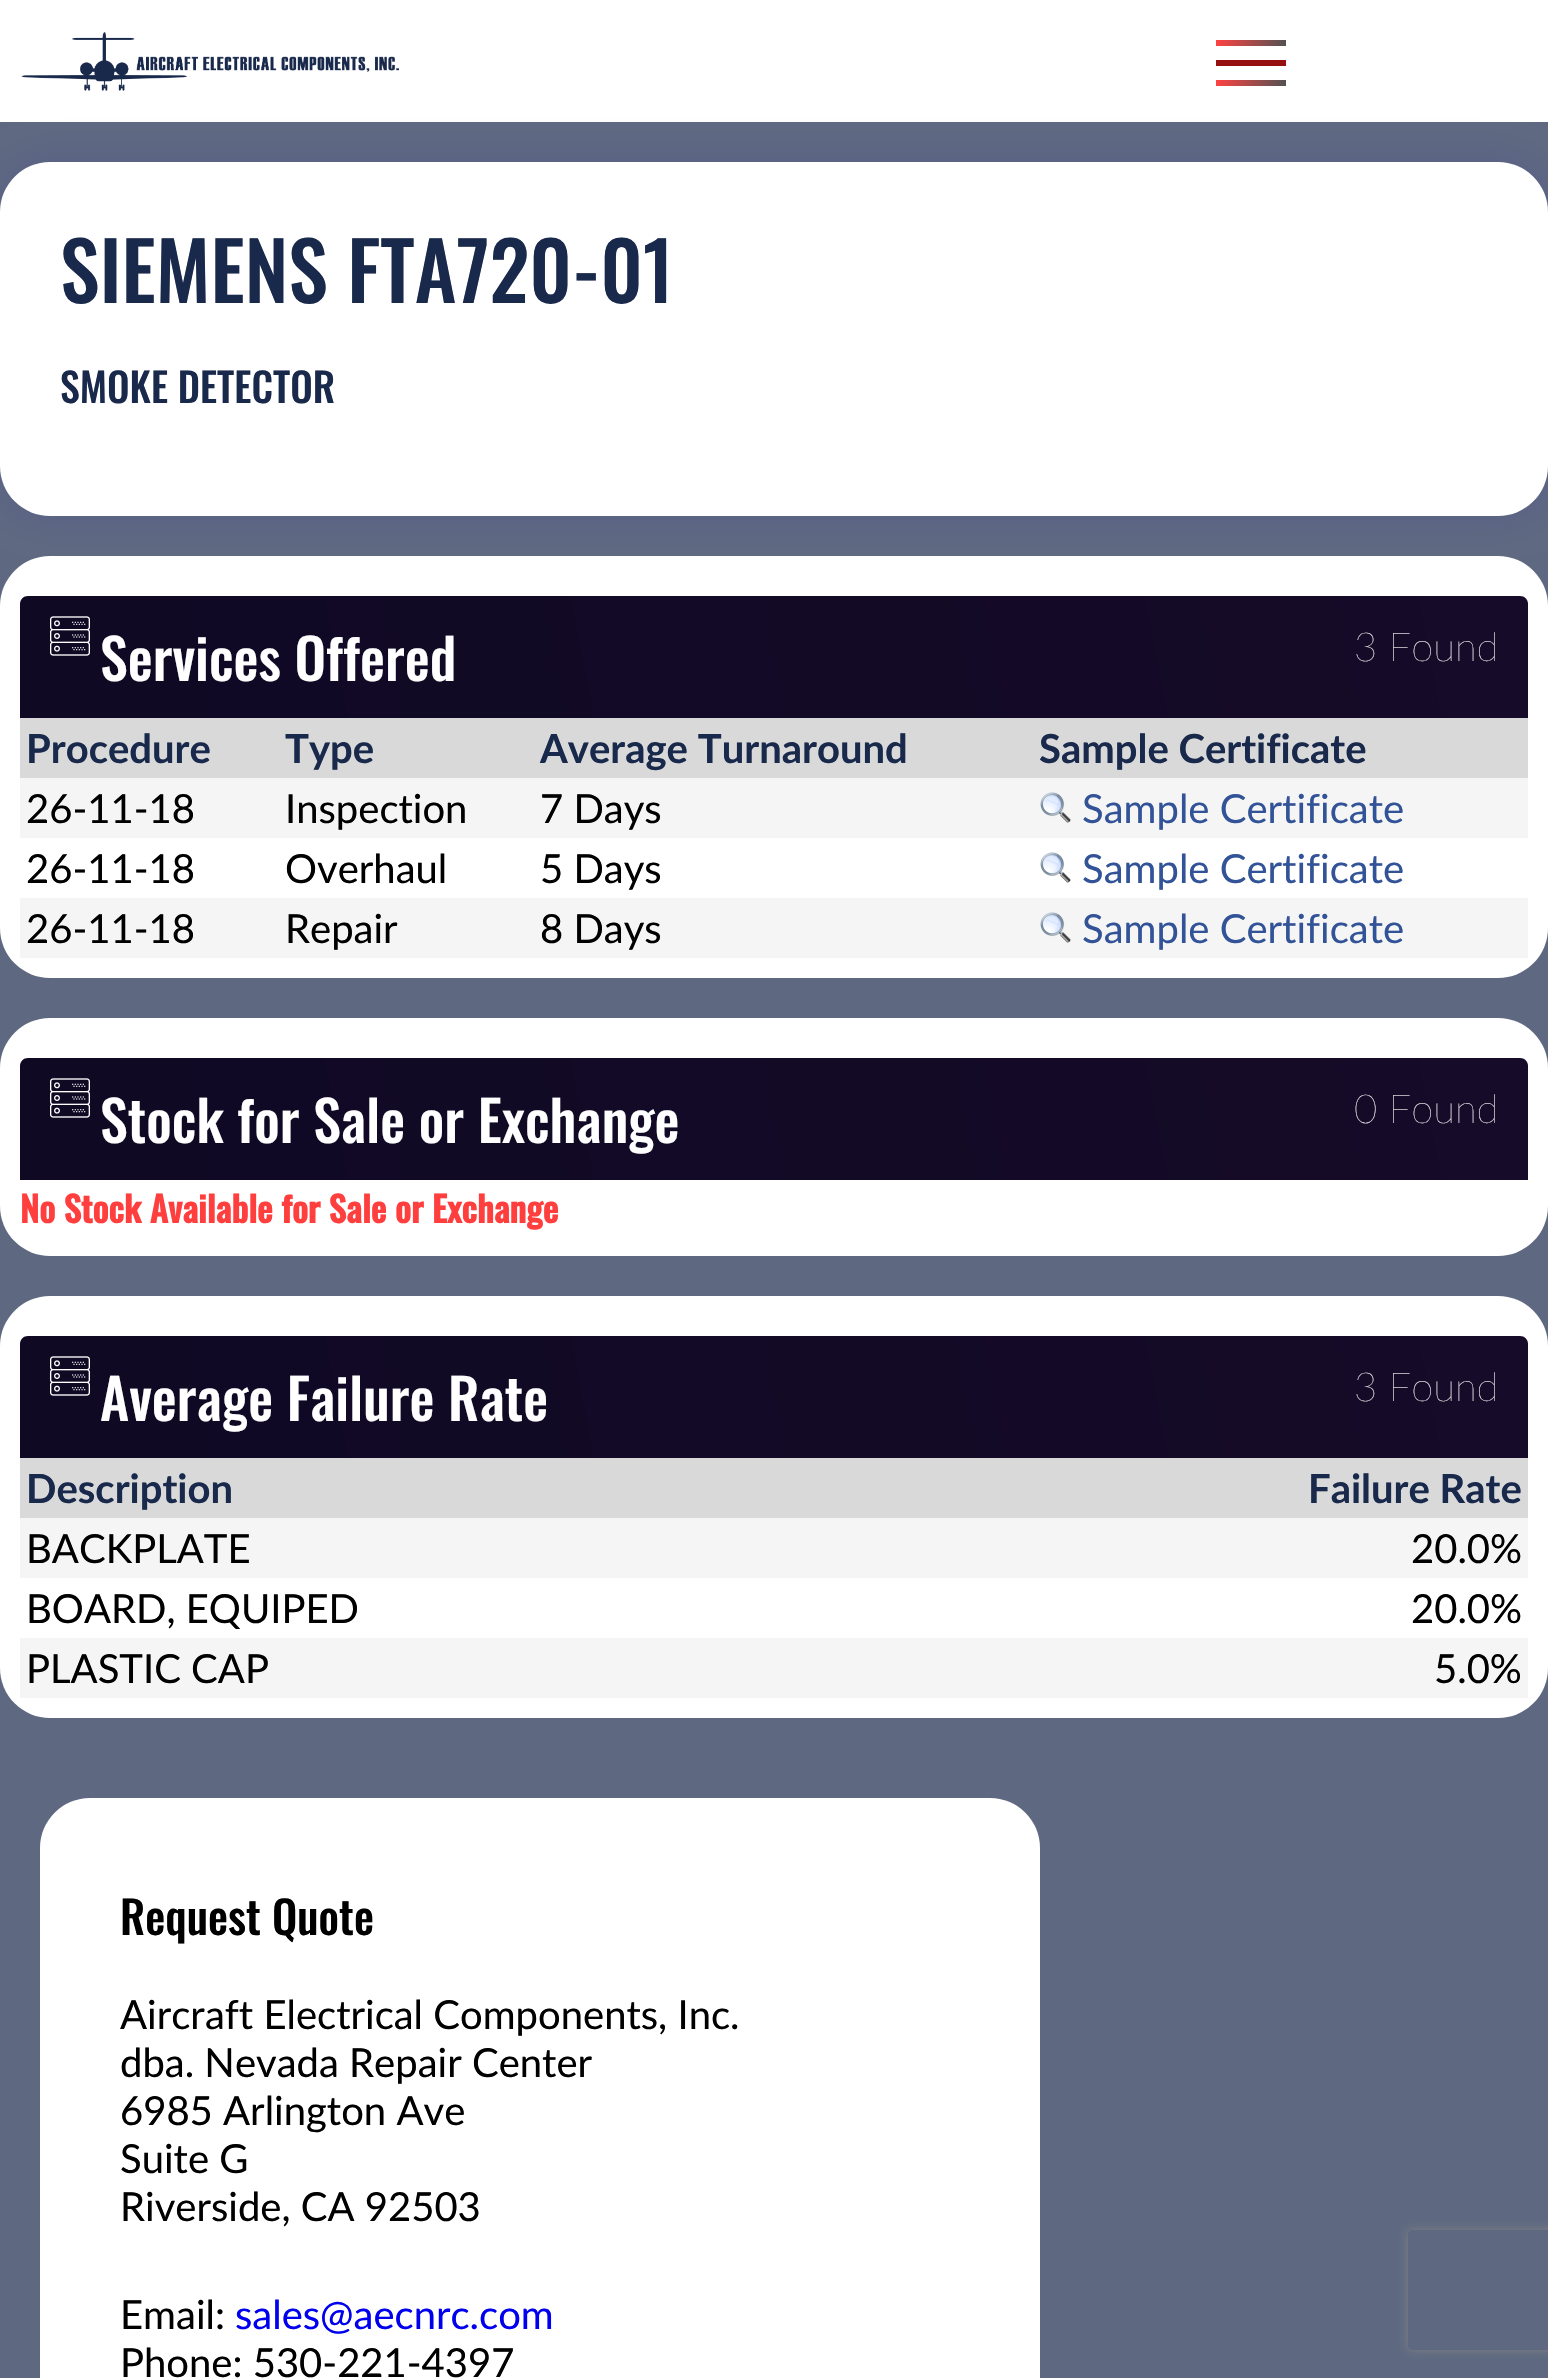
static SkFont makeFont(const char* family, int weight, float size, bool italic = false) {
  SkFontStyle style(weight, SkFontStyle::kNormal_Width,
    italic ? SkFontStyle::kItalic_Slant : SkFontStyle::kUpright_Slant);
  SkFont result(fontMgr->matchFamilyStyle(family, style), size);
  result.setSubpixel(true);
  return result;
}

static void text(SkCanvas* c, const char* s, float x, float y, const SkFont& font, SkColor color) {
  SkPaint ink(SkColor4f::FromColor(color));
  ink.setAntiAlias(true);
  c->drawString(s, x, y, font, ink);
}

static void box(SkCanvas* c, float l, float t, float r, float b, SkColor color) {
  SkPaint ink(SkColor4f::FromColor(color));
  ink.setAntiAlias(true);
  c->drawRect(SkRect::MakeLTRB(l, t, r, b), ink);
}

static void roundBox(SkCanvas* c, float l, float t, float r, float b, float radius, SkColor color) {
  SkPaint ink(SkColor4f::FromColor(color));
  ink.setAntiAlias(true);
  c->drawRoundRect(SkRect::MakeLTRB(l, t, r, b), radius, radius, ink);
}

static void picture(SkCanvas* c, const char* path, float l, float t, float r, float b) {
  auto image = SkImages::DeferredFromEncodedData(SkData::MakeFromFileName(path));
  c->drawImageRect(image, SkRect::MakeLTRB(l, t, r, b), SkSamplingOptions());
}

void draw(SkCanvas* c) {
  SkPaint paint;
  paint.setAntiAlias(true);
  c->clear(0xffffffff);
  picture(c, "img_01.png", 21, 32, 399, 91);
  box(c, 1216, 60, 1286, 66, 0xff961010);
  {
    const SkColor colors[] = {0xffff4242, 0xff525252};
    const float stops[] = {0, 1};
    const SkPoint ends[] = {{1216, 43}, {1286, 43}};
    paint.setShader(SkGradientShader::MakeLinear(ends, colors, stops, 2, SkTileMode::kClamp));
    paint.setAlpha(255);
  }
  c->drawRect(SkRect::MakeLTRB(1216, 40, 1286, 46), paint);
  {
    const SkColor colors[] = {0xffff4242, 0xff525252};
    const float stops[] = {0, 1};
    const SkPoint ends[] = {{1216, 83}, {1286, 83}};
    paint.setShader(SkGradientShader::MakeLinear(ends, colors, stops, 2, SkTileMode::kClamp));
    paint.setAlpha(255);
  }
  c->drawRect(SkRect::MakeLTRB(1216, 80, 1286, 86), paint);
  box(c, 0, 122, 1548, 2378, 0xff5e6981);
  paint.setShader(nullptr);
  paint.setColor(0x1a2600c8);
  paint.setMaskFilter(SkMaskFilter::MakeBlur(kNormal_SkBlurStyle, 18));
  c->drawRoundRect(SkRect::MakeLTRB(0, 162, 1548, 516), 50, 50, paint);
  paint.setMaskFilter(nullptr);
  roundBox(c, 0, 162, 1548, 516, 50, 0xffffffff);
  SkFont face1 = makeFont("Oswald", 500, 80);
  text(c, "SIEMENS FTA720-01", 60, 303, face1, 0xff19294b);
  SkFont face2 = makeFont("Oswald", 500, 40);
  text(c, "SMOKE DETECTOR", 60, 403, face2, 0xff19294b);
  roundBox(c, 0, 556, 1548, 978, 50, 0xffffffff);
  {
    const SkColor colors[] = {0xff0f0924, 0xff160b28};
    const float stops[] = {0, 1};
    const SkPoint ends[] = {{36, 800}, {1512, 514}};
    paint.setShader(SkGradientShader::MakeLinear(ends, colors, stops, 2, SkTileMode::kClamp));
    paint.setAlpha(255);
  }
  c->drawPath(SkPathBuilder().moveTo(28, 596).lineTo(1520, 596).cubicTo(1524.5f, 596, 1528, 599.5f, 1528, 604).lineTo(1528, 718).lineTo(20, 718).lineTo(20, 604).cubicTo(20, 599.5f, 23.5f, 596, 28, 596).close().detach(), paint);
  picture(c, "img_02.png", 50, 616, 90, 656);
  SkFont face3 = makeFont("Oswald", 500, 56);
  text(c, "Services Offered", 100, 681, face3, 0xffffffff);
  SkFont face4 = makeFont("Lato", 200, 40);
  text(c, "3 Found", 1354, 661, face4, 0xffffffff);
  box(c, 20, 718, 1528, 778, 0xffd9d9d9);
  SkFont face5 = makeFont("Lato", 700, 40);
  text(c, "Procedure", 26, 763, face5, 0xff19294b);
  text(c, "Type", 285, 763, face5, 0xff19294b);
  text(c, "Average Turnaround", 540, 763, face5, 0xff19294b);
  text(c, "Sample Certificate", 1039, 763, face5, 0xff19294b);
  box(c, 20, 778, 1528, 838, 0xfff5f5f5);
  SkFont face6 = makeFont("Lato", 400, 40);
  text(c, "26-11-18", 26, 823, face6, 0xff000000);
  text(c, "Inspection", 285, 823, face6, 0xff000000);
  text(c, "7 Days", 540, 823, face6, 0xff000000);
  picture(c, "img_03.png", 1040, 792, 1071, 823);
  text(c, "Sample Certificate", 1082, 823, face6, 0xff325397);
  text(c, "26-11-18", 26, 883, face6, 0xff000000);
  text(c, "Overhaul", 285, 883, face6, 0xff000000);
  text(c, "5 Days", 540, 883, face6, 0xff000000);
  picture(c, "img_04.png", 1040, 852, 1071, 883);
  text(c, "Sample Certificate", 1082, 883, face6, 0xff325397);
  box(c, 20, 898, 1528, 958, 0xfff5f5f5);
  text(c, "26-11-18", 26, 943, face6, 0xff000000);
  text(c, "Repair", 285, 943, face6, 0xff000000);
  text(c, "8 Days", 540, 943, face6, 0xff000000);
  picture(c, "img_03.png", 1040, 912, 1071, 943);
  text(c, "Sample Certificate", 1082, 943, face6, 0xff325397);
  roundBox(c, 0, 1018, 1548, 1256, 50, 0xffffffff);
  {
    const SkColor colors[] = {0xff0f0924, 0xff160b28};
    const float stops[] = {0, 1};
    const SkPoint ends[] = {{36, 1262}, {1512, 976}};
    paint.setShader(SkGradientShader::MakeLinear(ends, colors, stops, 2, SkTileMode::kClamp));
    paint.setAlpha(255);
  }
  c->drawPath(SkPathBuilder().moveTo(28, 1058).lineTo(1520, 1058).cubicTo(1524.5f, 1058, 1528, 1061.5f, 1528, 1066).lineTo(1528, 1180).lineTo(20, 1180).lineTo(20, 1066).cubicTo(20, 1061.5f, 23.5f, 1058, 28, 1058).close().detach(), paint);
  picture(c, "img_02.png", 50, 1078, 90, 1118);
  text(c, "Stock for Sale or Exchange", 100, 1143, face3, 0xffffffff);
  text(c, "0 Found", 1354, 1123, face4, 0xffffffff);
  SkFont face7 = makeFont("Oswald", 700, 35.1f);
  text(c, "No Stock Available for Sale or Exchange", 20, 1223, face7, 0xffff3e3e);
  roundBox(c, 0, 1296, 1548, 1718, 50, 0xffffffff);
  {
    const SkColor colors[] = {0xff0f0924, 0xff160b28};
    const float stops[] = {0, 1};
    const SkPoint ends[] = {{36, 1540}, {1512, 1254}};
    paint.setShader(SkGradientShader::MakeLinear(ends, colors, stops, 2, SkTileMode::kClamp));
    paint.setAlpha(255);
  }
  c->drawPath(SkPathBuilder().moveTo(28, 1336).lineTo(1520, 1336).cubicTo(1524.5f, 1336, 1528, 1339.5f, 1528, 1344).lineTo(1528, 1458).lineTo(20, 1458).lineTo(20, 1344).cubicTo(20, 1339.5f, 23.5f, 1336, 28, 1336).close().detach(), paint);
  picture(c, "img_02.png", 50, 1356, 90, 1396);
  text(c, "Average Failure Rate", 100, 1421, face3, 0xffffffff);
  text(c, "3 Found", 1354, 1401, face4, 0xffffffff);
  box(c, 20, 1458, 1528, 1518, 0xffd9d9d9);
  text(c, "Description", 26, 1503, face5, 0xff19294b);
  text(c, "Failure Rate", 1308, 1503, face5, 0xff19294b);
  box(c, 20, 1518, 1528, 1578, 0xfff5f5f5);
  text(c, "BACKPLATE", 26, 1563, face6, 0xff000000);
  text(c, "20.0%", 1411, 1563, face6, 0xff000000);
  text(c, "BOARD, EQUIPED", 26, 1623, face6, 0xff000000);
  text(c, "20.0%", 1411, 1623, face6, 0xff000000);
  box(c, 20, 1638, 1528, 1698, 0xfff5f5f5);
  text(c, "PLASTIC CAP", 26, 1683, face6, 0xff000000);
  text(c, "5.0%", 1434, 1683, face6, 0xff000000);
  roundBox(c, 40, 1798, 1040, 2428, 50, 0xffffffff);
  SkFont face8 = makeFont("Oswald", 500, 45);
  text(c, "Request Quote", 120, 1935, face8, 0xff000000);
  text(c, "Aircraft Electrical Components, Inc.", 120, 2029, face6, 0xff000000);
  text(c, "dba. Nevada Repair Center", 120, 2077, face6, 0xff000000);
  text(c, "6985 Arlington Ave", 120, 2125, face6, 0xff000000);
  text(c, "Suite G", 120, 2173, face6, 0xff000000);
  text(c, "Riverside, CA 92503", 120, 2221, face6, 0xff000000);
  text(c, "Email:", 120, 2329, face6, 0xff000000);
  text(c, "sales@aecnrc.com", 235, 2329, face6, 0xff0000ee);
  text(c, "Phone: 530-221-4397", 120, 2377, face6, 0xff000000);
  c->save();
  c->clipPath(SkPathBuilder(SkPathFillType::kEvenOdd).moveTo(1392, 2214).lineTo(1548, 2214).lineTo(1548, 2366).lineTo(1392, 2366).close().moveTo(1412, 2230).lineTo(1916, 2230).cubicTo(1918, 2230, 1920, 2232, 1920, 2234).lineTo(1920, 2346).cubicTo(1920, 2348, 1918, 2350, 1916, 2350).lineTo(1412, 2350).cubicTo(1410, 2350, 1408, 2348, 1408, 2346).lineTo(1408, 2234).cubicTo(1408, 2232, 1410, 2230, 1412, 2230).close().detach(), true);
  paint.setShader(nullptr);
  paint.setColor(0xff808080);
  paint.setMaskFilter(SkMaskFilter::MakeBlur(kNormal_SkBlurStyle, 5));
  c->drawRoundRect(SkRect::MakeLTRB(1408, 2230, 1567, 2350), 4, 4, paint);
  paint.setMaskFilter(nullptr);
  c->restore();
}
